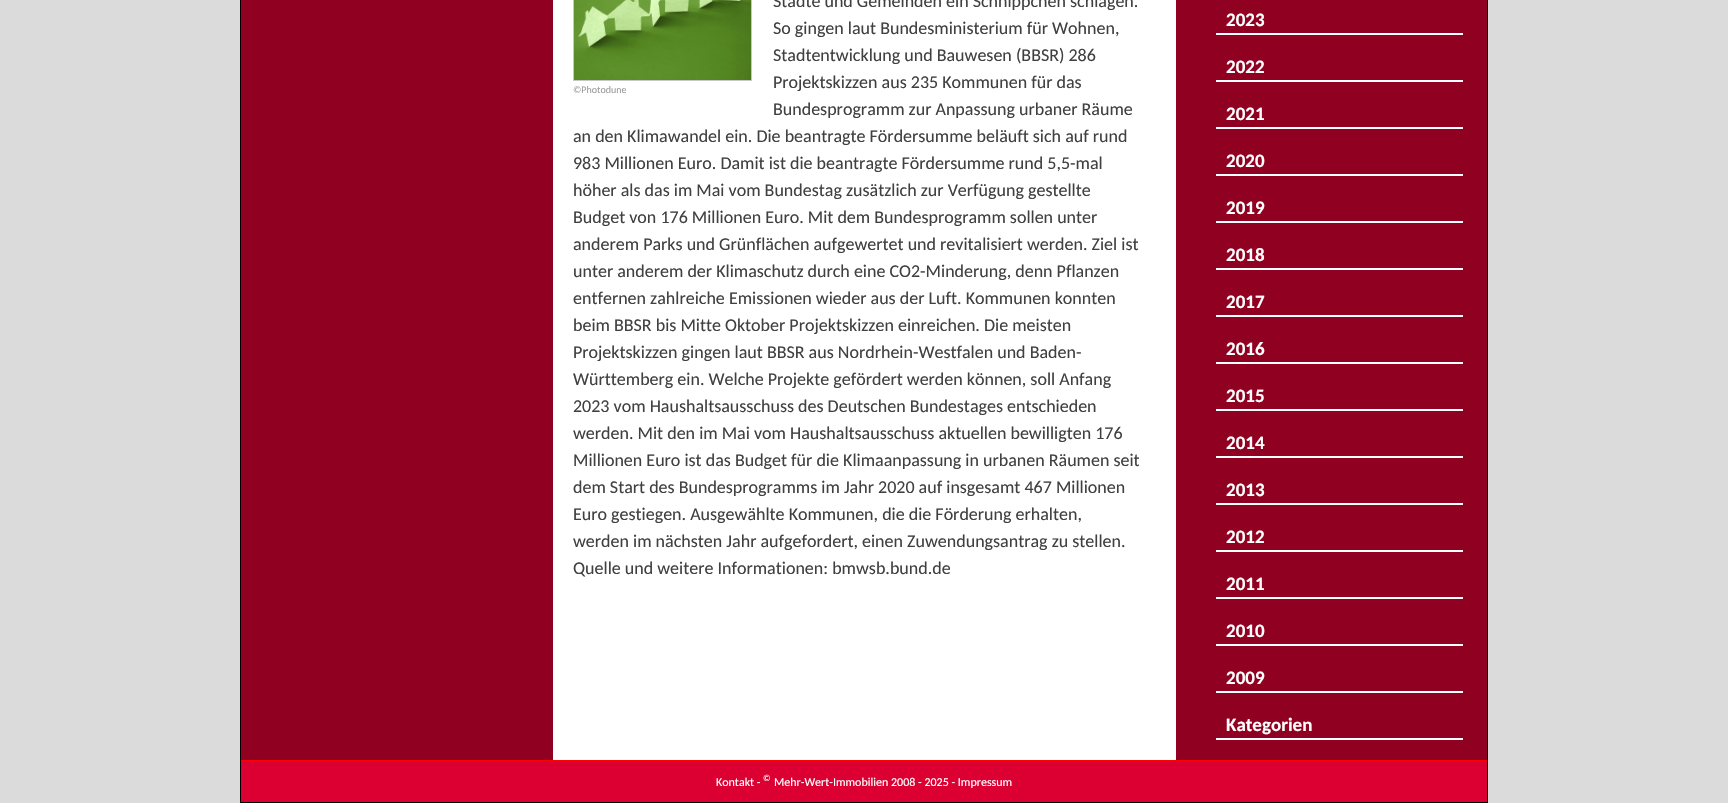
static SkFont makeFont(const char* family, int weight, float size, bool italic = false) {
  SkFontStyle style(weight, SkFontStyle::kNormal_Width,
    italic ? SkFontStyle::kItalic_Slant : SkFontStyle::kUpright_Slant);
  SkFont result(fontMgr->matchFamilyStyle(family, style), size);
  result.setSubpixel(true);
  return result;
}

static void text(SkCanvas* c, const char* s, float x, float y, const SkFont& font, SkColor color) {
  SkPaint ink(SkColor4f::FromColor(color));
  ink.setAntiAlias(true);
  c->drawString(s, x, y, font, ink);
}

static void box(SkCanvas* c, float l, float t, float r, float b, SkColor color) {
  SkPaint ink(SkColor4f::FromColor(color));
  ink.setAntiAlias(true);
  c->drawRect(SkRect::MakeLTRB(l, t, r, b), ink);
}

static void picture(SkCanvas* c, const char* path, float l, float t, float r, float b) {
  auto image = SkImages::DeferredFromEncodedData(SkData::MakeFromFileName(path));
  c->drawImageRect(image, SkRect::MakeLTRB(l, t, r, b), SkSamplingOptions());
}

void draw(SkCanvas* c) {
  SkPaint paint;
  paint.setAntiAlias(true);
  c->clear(0xffdbdbdb);
  box(c, 241, 0, 553, 760, 0xff8f0021);
  paint.setStyle(SkPaint::kStroke_Style);
  paint.setStrokeWidth(1);
  paint.setColor(0xff000000);
  c->drawRect(SkRect::MakeLTRB(240.5f, -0.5f, 1487.5f, 802.5f), paint);
  box(c, 553, 0, 1176, 760, 0xffffffff);
  SkFont face1 = makeFont("Carlito", 400, 18);
  text(c, "Städte und Gemeinden ein Schnippchen schlagen.", 773, 7, face1, 0xff404040);
  text(c, "So gingen laut Bundesministerium für Wohnen,", 773, 34, face1, 0xff404040);
  text(c, "Stadtentwicklung und Bauwesen (BBSR) 286", 773, 61, face1, 0xff404040);
  text(c, "Projektskizzen aus 235 Kommunen für das", 773, 88, face1, 0xff404040);
  text(c, "Bundesprogramm zur Anpassung urbaner Räume", 773, 115, face1, 0xff404040);
  text(c, "an den Klimawandel ein. Die beantragte Fördersumme beläuft sich auf rund", 573, 142, face1, 0xff404040);
  text(c, "983 Millionen Euro. Damit ist die beantragte Fördersumme rund 5,5-mal", 573, 169, face1, 0xff404040);
  text(c, "höher als das im Mai vom Bundestag zusätzlich zur Verfügung gestellte", 573, 196, face1, 0xff404040);
  text(c, "Budget von 176 Millionen Euro. Mit dem Bundesprogramm sollen unter", 573, 223, face1, 0xff404040);
  text(c, "anderem Parks und Grünflächen aufgewertet und revitalisiert werden. Ziel ist", 573, 250, face1, 0xff404040);
  text(c, "unter anderem der Klimaschutz durch eine CO2-Minderung, denn Pflanzen", 573, 277, face1, 0xff404040);
  text(c, "entfernen zahlreiche Emissionen wieder aus der Luft. Kommunen konnten", 573, 304, face1, 0xff404040);
  text(c, "beim BBSR bis Mitte Oktober Projektskizzen einreichen. Die meisten", 573, 331, face1, 0xff404040);
  text(c, "Projektskizzen gingen laut BBSR aus Nordrhein-Westfalen und Baden-", 573, 358, face1, 0xff404040);
  text(c, "Württemberg ein. Welche Projekte gefördert werden können, soll Anfang", 573, 385, face1, 0xff404040);
  text(c, "2023 vom Haushaltsausschuss des Deutschen Bundestages entschieden", 573, 412, face1, 0xff404040);
  text(c, "werden. Mit den im Mai vom Haushaltsausschuss aktuellen bewilligten 176", 573, 439, face1, 0xff404040);
  text(c, "Millionen Euro ist das Budget für die Klimaanpassung in urbanen Räumen seit", 573, 466, face1, 0xff404040);
  text(c, "dem Start des Bundesprogramms im Jahr 2020 auf insgesamt 467 Millionen", 573, 493, face1, 0xff404040);
  text(c, "Euro gestiegen. Ausgewählte Kommunen, die die Förderung erhalten,", 573, 520, face1, 0xff404040);
  text(c, "werden im nächsten Jahr aufgefordert, einen Zuwendungsantrag zu stellen.", 573, 547, face1, 0xff404040);
  text(c, "Quelle und weitere Informationen: bmwsb.bund.de", 573, 574, face1, 0xff404040);
  paint.setColor(0xffc7c7c7);
  c->drawRect(SkRect::MakeLTRB(573.5f, -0.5f, 751.5f, 80.5f), paint);
  picture(c, "img_01.png", 574, 0, 751, 80);
  SkFont face2 = makeFont("Carlito", 400, 10);
  text(c, "©Photodune", 573, 93, face2, 0xff9c9c9c);
  box(c, 1176, 0, 1487, 760, 0xff8f0021);
  SkFont face3 = makeFont("Carlito", 700, 19);
  text(c, "2023", 1226, 26, face3, 0xffffffff);
  box(c, 1216, 33, 1463, 35, 0xffffffff);
  text(c, "2022", 1226, 73, face3, 0xffffffff);
  box(c, 1216, 80, 1463, 82, 0xffffffff);
  text(c, "2021", 1226, 120, face3, 0xffffffff);
  box(c, 1216, 127, 1463, 129, 0xffffffff);
  text(c, "2020", 1226, 167, face3, 0xffffffff);
  box(c, 1216, 174, 1463, 176, 0xffffffff);
  text(c, "2019", 1226, 214, face3, 0xffffffff);
  box(c, 1216, 221, 1463, 223, 0xffffffff);
  text(c, "2018", 1226, 261, face3, 0xffffffff);
  box(c, 1216, 268, 1463, 270, 0xffffffff);
  text(c, "2017", 1226, 308, face3, 0xffffffff);
  box(c, 1216, 315, 1463, 317, 0xffffffff);
  text(c, "2016", 1226, 355, face3, 0xffffffff);
  box(c, 1216, 362, 1463, 364, 0xffffffff);
  text(c, "2015", 1226, 402, face3, 0xffffffff);
  box(c, 1216, 409, 1463, 411, 0xffffffff);
  text(c, "2014", 1226, 449, face3, 0xffffffff);
  box(c, 1216, 456, 1463, 458, 0xffffffff);
  text(c, "2013", 1226, 496, face3, 0xffffffff);
  box(c, 1216, 503, 1463, 505, 0xffffffff);
  text(c, "2012", 1226, 543, face3, 0xffffffff);
  box(c, 1216, 550, 1463, 552, 0xffffffff);
  text(c, "2011", 1226, 590, face3, 0xffffffff);
  box(c, 1216, 597, 1463, 599, 0xffffffff);
  text(c, "2010", 1226, 637, face3, 0xffffffff);
  box(c, 1216, 644, 1463, 646, 0xffffffff);
  text(c, "2009", 1226, 684, face3, 0xffffffff);
  box(c, 1216, 691, 1463, 693, 0xffffffff);
  text(c, "Kategorien", 1226, 731, face3, 0xffffffff);
  box(c, 1216, 738, 1463, 740, 0xffffffff);
  box(c, 241, 761, 1487, 802, 0xffdc0032);
  box(c, 241, 760, 1487, 761, 0xffff0000);
  SkFont face4 = makeFont("Carlito", 400, 12);
  text(c, "Kontakt -", 716, 786, face4, 0xffffffff);
  SkFont face5 = makeFont("Carlito", 400, 9);
  text(c, "©", 763, 781, face5, 0xffffffff);
  text(c, "Mehr-Wert-Immobilien 2008 - 2025 - Impressum", 774, 786, face4, 0xffffffff);
}
